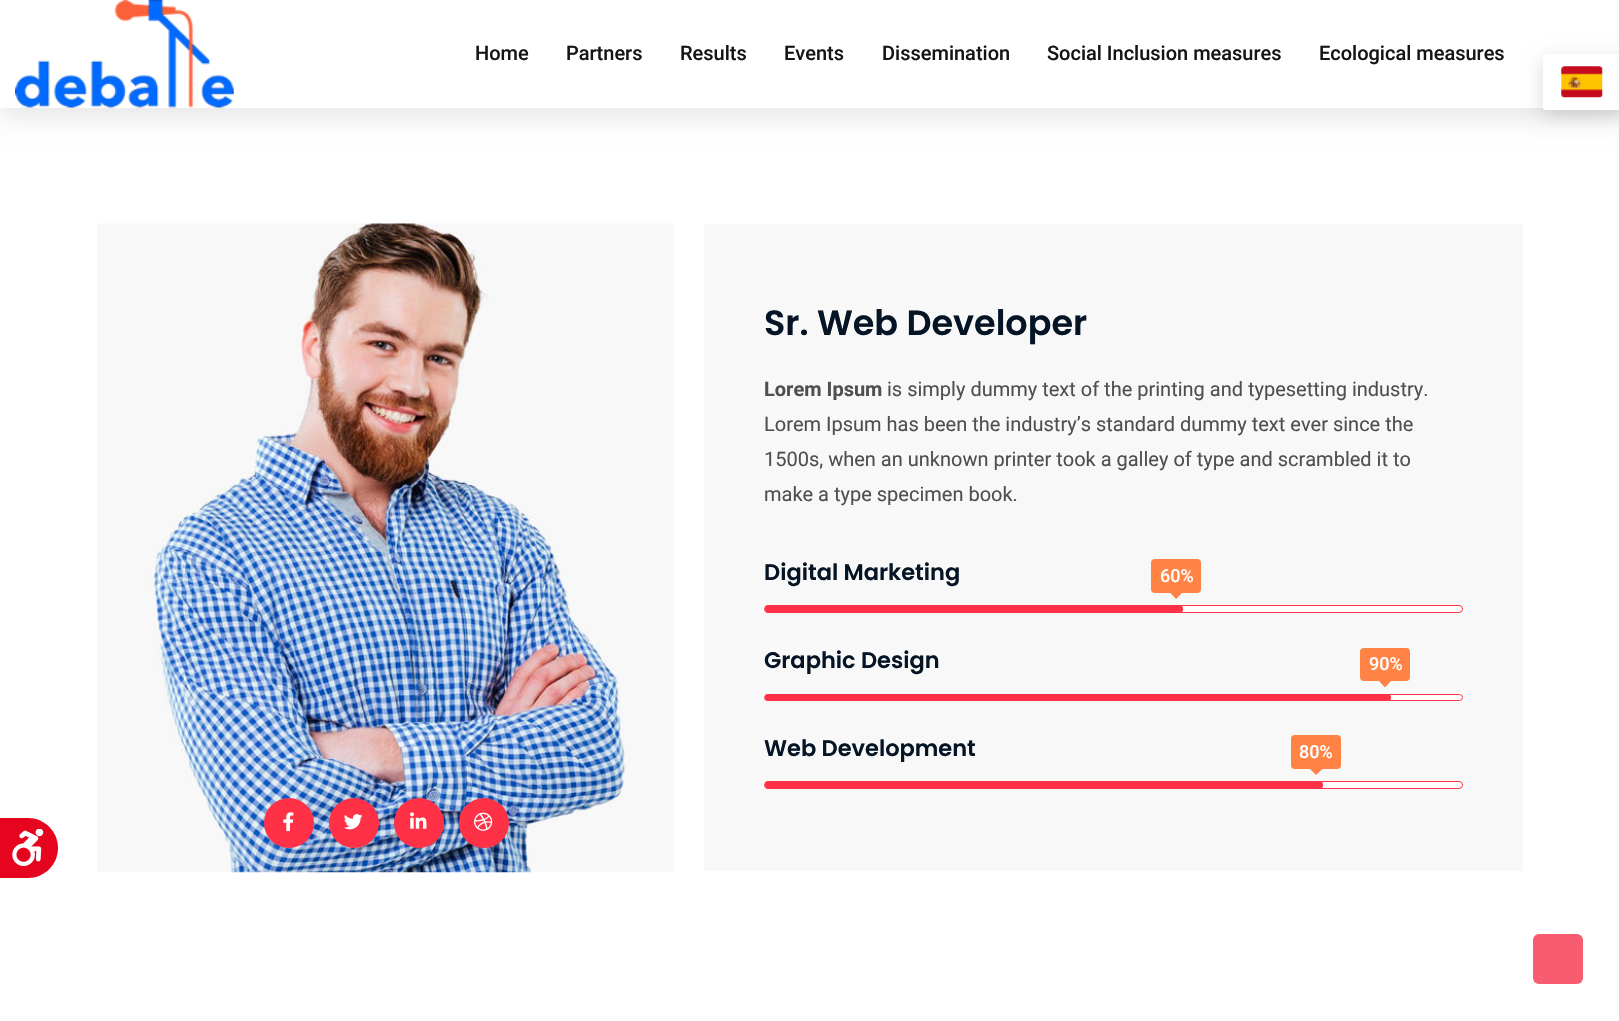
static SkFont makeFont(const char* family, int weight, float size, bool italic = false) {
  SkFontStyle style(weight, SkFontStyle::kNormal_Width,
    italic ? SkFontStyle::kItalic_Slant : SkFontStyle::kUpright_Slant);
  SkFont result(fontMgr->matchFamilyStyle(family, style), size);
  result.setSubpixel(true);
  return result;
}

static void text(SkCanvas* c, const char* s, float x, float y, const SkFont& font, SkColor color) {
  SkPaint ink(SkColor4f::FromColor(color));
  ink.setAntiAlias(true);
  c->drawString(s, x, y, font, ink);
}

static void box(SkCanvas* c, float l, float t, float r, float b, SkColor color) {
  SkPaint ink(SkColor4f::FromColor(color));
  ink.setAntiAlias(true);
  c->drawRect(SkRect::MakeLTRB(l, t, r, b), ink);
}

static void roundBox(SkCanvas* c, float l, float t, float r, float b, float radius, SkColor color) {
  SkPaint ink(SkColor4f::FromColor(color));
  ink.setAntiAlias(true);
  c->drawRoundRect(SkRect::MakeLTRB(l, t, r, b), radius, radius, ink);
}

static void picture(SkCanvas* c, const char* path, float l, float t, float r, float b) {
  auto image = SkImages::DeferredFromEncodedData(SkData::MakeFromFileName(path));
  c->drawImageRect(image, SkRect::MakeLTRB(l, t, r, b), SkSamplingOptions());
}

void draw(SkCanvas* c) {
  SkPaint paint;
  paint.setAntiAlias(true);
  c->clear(0xffffffff);
  paint.setColor(0x1a000000);
  paint.setMaskFilter(SkMaskFilter::MakeBlur(kNormal_SkBlurStyle, 12.5f));
  c->drawRect(SkRect::MakeLTRB(0, 9, 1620, 116), paint);
  paint.setMaskFilter(nullptr);
  box(c, 0, 0, 1619, 108, 0xffffffff);
  picture(c, "img_01.png", 15, 0, 234, 108);
  SkFont face1 = makeFont("Roboto", 500, 20);
  text(c, "Home", 475, 60, face1, 0xff151515);
  text(c, "Partners", 566, 60, face1, 0xff151515);
  text(c, "Results", 680, 60, face1, 0xff151515);
  text(c, "Events", 784, 60, face1, 0xff151515);
  text(c, "Dissemination", 882, 60, face1, 0xff151515);
  text(c, "Social Inclusion measures", 1047, 60, face1, 0xff151515);
  text(c, "Ecological measures", 1319, 60, face1, 0xff151515);
  paint.setColor(0x26000000);
  paint.setMaskFilter(SkMaskFilter::MakeBlur(kNormal_SkBlurStyle, 9.5f));
  c->drawRoundRect(SkRect::MakeLTRB(1543, 60, 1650, 116), 2.5f, 2.5f, paint);
  paint.setMaskFilter(nullptr);
  roundBox(c, 1543, 54, 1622, 110, 2.5f, 0xffffffff);
  picture(c, "img_02.png", 1561, 66, 1603, 98);
  picture(c, "img_03.png", 97, 223, 674, 873);
  paint.setColor(0xffff3147);
  c->drawCircle(289, 823, 25, paint);
  picture(c, "img_04.png", 283, 812, 294, 832);
  c->drawCircle(354, 823, 25, paint);
  picture(c, "img_05.png", 344, 814, 363, 830);
  c->drawCircle(419, 823, 25, paint);
  picture(c, "img_06.png", 410, 812, 427, 829);
  c->drawCircle(484, 823, 25, paint);
  picture(c, "img_07.png", 474, 812, 493, 831);
  box(c, 704, 224, 1523, 871, 0xfff8f8f8);
  SkFont face2 = makeFont("Poppins", 600, 35);
  text(c, "Sr. Web Developer", 764, 335, face2, 0xff061526);
  SkFont face3 = makeFont("Roboto", 700, 20);
  text(c, "Lorem Ipsum", 764, 396, face3, 0xff4f4f4f);
  SkFont face4 = makeFont("Roboto", 400, 20);
  text(c, "is simply dummy text of the printing and typesetting industry.", 887, 396, face4, 0xff4f4f4f);
  text(c, "Lorem Ipsum has been the industry’s standard dummy text ever since the", 764, 431, face4, 0xff4f4f4f);
  text(c, "1500s, when an unknown printer took a galley of type and scrambled it to", 764, 466, face4, 0xff4f4f4f);
  text(c, "make a type specimen book.", 764, 501, face4, 0xff4f4f4f);
  SkFont face5 = makeFont("Poppins", 600, 22.5f);
  text(c, "Digital Marketing", 764, 580, face5, 0xff061526);
  paint.setColor(0xffffffff);
  c->drawRoundRect(SkRect::MakeLTRB(764.5f, 605.5f, 1462.5f, 612.5f), 3.5f, 3.5f, paint);
  paint.setStyle(SkPaint::kStroke_Style);
  paint.setStrokeWidth(1);
  paint.setColor(0xffff3147);
  c->drawRoundRect(SkRect::MakeLTRB(764.5f, 605.5f, 1462.5f, 612.5f), 3.5f, 3.5f, paint);
  roundBox(c, 765, 605, 1183, 613, 4, 0xffff3147);
  roundBox(c, 1151, 559, 1201, 593, 4, 0xffff8345);
  SkFont face6 = makeFont("Roboto", 500, 18);
  text(c, "60%", 1160, 582, face6, 0xffffffff);
  paint.setStyle(SkPaint::kFill_Style);
  paint.setColor(0xffff8345);
  c->drawPath(SkPathBuilder().moveTo(1170, 592.5f).lineTo(1182.5f, 592.5f).lineTo(1176, 599).close().detach(), paint);
  text(c, "Graphic Design", 764, 668, face5, 0xff061526);
  paint.setColor(0xffffffff);
  c->drawRoundRect(SkRect::MakeLTRB(764.5f, 694.5f, 1462.5f, 700.5f), 3, 3, paint);
  paint.setStyle(SkPaint::kStroke_Style);
  paint.setColor(0xffff3147);
  c->drawRoundRect(SkRect::MakeLTRB(764.5f, 694.5f, 1462.5f, 700.5f), 3, 3, paint);
  roundBox(c, 765, 694, 1391, 701, 3.5f, 0xffff3147);
  roundBox(c, 1360, 648, 1410, 681, 4, 0xffff8345);
  text(c, "90%", 1369, 670, face6, 0xffffffff);
  paint.setStyle(SkPaint::kFill_Style);
  paint.setColor(0xffff8345);
  c->drawPath(SkPathBuilder().moveTo(1379, 681).lineTo(1391, 681).lineTo(1385, 687.5f).close().detach(), paint);
  text(c, "Web Development", 764, 756, face5, 0xff061526);
  paint.setColor(0xffffffff);
  c->drawRoundRect(SkRect::MakeLTRB(764.5f, 781.5f, 1462.5f, 788.5f), 3.5f, 3.5f, paint);
  paint.setStyle(SkPaint::kStroke_Style);
  paint.setColor(0xffff3147);
  c->drawRoundRect(SkRect::MakeLTRB(764.5f, 781.5f, 1462.5f, 788.5f), 3.5f, 3.5f, paint);
  roundBox(c, 765, 781, 1323, 789, 4, 0xffff3147);
  roundBox(c, 1291, 735, 1341, 769, 4, 0xffff8345);
  text(c, "80%", 1299, 758, face6, 0xffffffff);
  paint.setStyle(SkPaint::kFill_Style);
  paint.setColor(0xffff8345);
  c->drawPath(SkPathBuilder().moveTo(1310, 769).lineTo(1322.5f, 769).lineTo(1316, 775).close().detach(), paint);
  roundBox(c, 1533, 934, 1583, 984, 6, 0xfff85c70);
  paint.setColor(0xffe6051f);
  c->drawPath(SkPathBuilder().moveTo(0, 818).lineTo(28, 818).cubicTo(44.5f, 818, 58, 831.5f, 58, 848).cubicTo(58, 864.5f, 44.5f, 878, 28, 878).lineTo(0, 878).close().detach(), paint);
  picture(c, "img_08.png", 12, 829, 44, 866);
}
